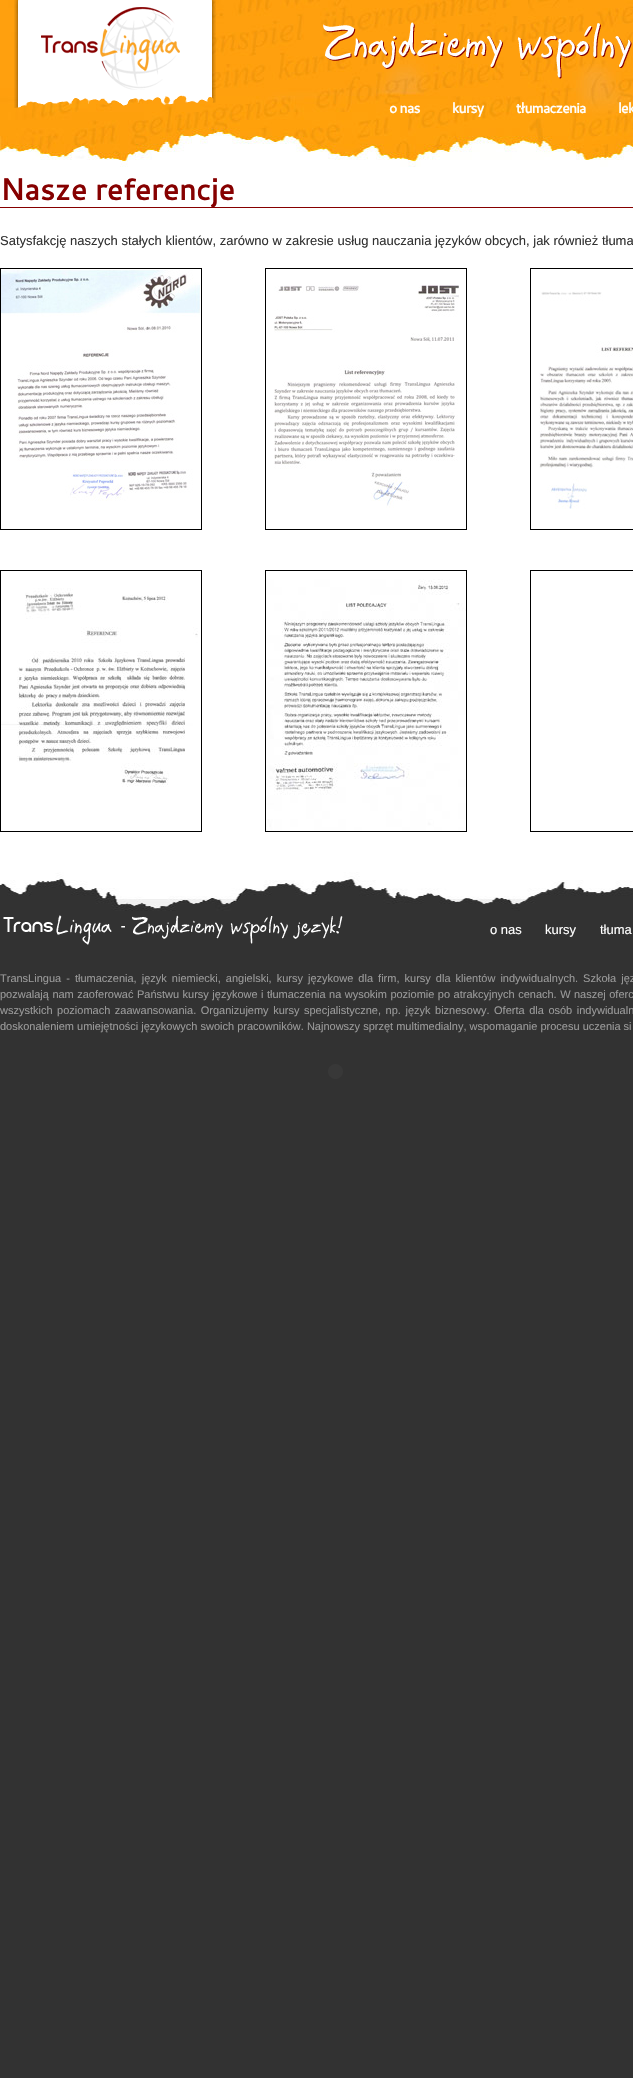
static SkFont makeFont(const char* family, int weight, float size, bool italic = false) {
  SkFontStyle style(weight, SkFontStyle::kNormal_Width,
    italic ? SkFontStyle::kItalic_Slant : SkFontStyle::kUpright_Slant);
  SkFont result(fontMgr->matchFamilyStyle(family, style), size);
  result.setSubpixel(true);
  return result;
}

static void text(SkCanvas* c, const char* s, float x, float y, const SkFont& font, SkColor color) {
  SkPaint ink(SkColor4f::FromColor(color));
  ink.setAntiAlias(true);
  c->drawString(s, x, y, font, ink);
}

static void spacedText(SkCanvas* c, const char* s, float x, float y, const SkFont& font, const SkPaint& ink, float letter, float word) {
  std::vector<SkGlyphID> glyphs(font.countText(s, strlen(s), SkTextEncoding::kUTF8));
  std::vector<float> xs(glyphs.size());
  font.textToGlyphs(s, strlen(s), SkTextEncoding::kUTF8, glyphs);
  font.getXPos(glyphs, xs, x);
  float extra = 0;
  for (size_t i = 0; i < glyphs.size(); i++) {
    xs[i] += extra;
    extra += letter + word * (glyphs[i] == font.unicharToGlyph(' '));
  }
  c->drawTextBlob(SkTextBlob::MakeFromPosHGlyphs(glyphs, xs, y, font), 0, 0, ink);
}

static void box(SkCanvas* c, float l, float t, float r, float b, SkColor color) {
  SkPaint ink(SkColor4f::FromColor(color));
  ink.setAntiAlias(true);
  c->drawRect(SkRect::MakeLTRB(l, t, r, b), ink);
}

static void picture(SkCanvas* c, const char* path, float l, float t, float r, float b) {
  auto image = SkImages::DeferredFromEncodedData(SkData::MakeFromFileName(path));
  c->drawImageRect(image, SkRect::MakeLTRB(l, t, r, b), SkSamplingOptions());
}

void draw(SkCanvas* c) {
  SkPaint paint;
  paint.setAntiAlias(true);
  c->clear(0xff323232);
  picture(c, "img_01.png", 0, 0, 633, 167);
  picture(c, "img_02.png", 14, 0, 216, 108);
  picture(c, "img_03.png", 323, 22, 632, 79);
  SkFont face1 = makeFont("Cantarell", 700, 14);
  paint.setColor(0xffffffff);
  spacedText(c, "o nas", 389, 113, face1, paint, -0.75f, 0);
  spacedText(c, "kursy", 452, 113, face1, paint, -0.75f, 0);
  spacedText(c, "tłumaczenia", 516, 113, face1, paint, -0.75f, 0);
  spacedText(c, "lek", 618, 113, face1, paint, -0.75f, 0);
  box(c, 0, 167, 633, 872, 0xffffffff);
  box(c, 0, 207, 633, 208, 0xff860000);
  SkFont face2 = makeFont("Cantarell", 700, 30);
  text(c, "Nasze referencje", 0, 200, face2, 0xff860000);
  SkFont face3 = makeFont("Liberation Sans", 400, 13);
  text(c, "Satysfakcję naszych stałych klientów, zarówno w zakresie usług nauczania języków obcych, jak również tłuma", 0, 245, face3, 0xff323232);
  paint.setStyle(SkPaint::kStroke_Style);
  paint.setStrokeWidth(1);
  paint.setColor(0xff000000);
  c->drawRect(SkRect::MakeLTRB(0.5f, 268.5f, 201.5f, 529.5f), paint);
  picture(c, "img_04.png", 1, 270, 201, 501);
  c->drawRect(SkRect::MakeLTRB(265.5f, 268.5f, 466.5f, 529.5f), paint);
  picture(c, "img_05.png", 274, 285, 459, 508);
  c->drawRect(SkRect::MakeLTRB(530.5f, 268.5f, 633.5f, 529.5f), paint);
  picture(c, "img_06.png", 539, 291, 633, 509);
  c->drawRect(SkRect::MakeLTRB(0.5f, 570.5f, 201.5f, 831.5f), paint);
  picture(c, "img_07.png", 1, 588, 198, 787);
  c->drawRect(SkRect::MakeLTRB(265.5f, 570.5f, 466.5f, 831.5f), paint);
  picture(c, "img_08.png", 266, 579, 466, 831);
  c->drawRect(SkRect::MakeLTRB(530.5f, 570.5f, 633.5f, 831.5f), paint);
  picture(c, "img_09.png", 0, 872, 633, 911);
  picture(c, "img_10.png", 3, 915, 343, 945);
  text(c, "o nas", 490, 934, face3, 0xffffffff);
  text(c, "kursy", 545, 934, face3, 0xffffffff);
  text(c, "tłuma", 600, 934, face3, 0xffffffff);
  SkFont face4 = makeFont("Liberation Sans", 400, 11);
  paint.setStyle(SkPaint::kFill_Style);
  paint.setColor(0xff999999);
  spacedText(c, "TransLingua - tłumaczenia, język niemiecki, angielski, kursy językowe dla firm, kursy dla klientów indywidualnych. Szkoła jęz", 0, 982, face4, paint, 0, 2);
  spacedText(c, "pozwalają nam zaoferować Państwu kursy językowe i tłumaczenia na wysokim poziomie po atrakcyjnych cenach. W naszej oferc", 0, 998, face4, paint, 0, 0.4f);
  spacedText(c, "wszystkich poziomach zaawansowania. Organizujemy kursy specjalistyczne, np. język biznesowy. Oferta dla osób indywidualn", 0, 1014, face4, paint, 0, 1.5f);
  text(c, "doskonaleniem umiejętności językowych swoich pracowników. Najnowszy sprzęt multimedialny, wspomaganie procesu uczenia si", 0, 1030, face4, 0xff999999);
  picture(c, "img_11.png", 328, 1064, 343, 1079);
}
